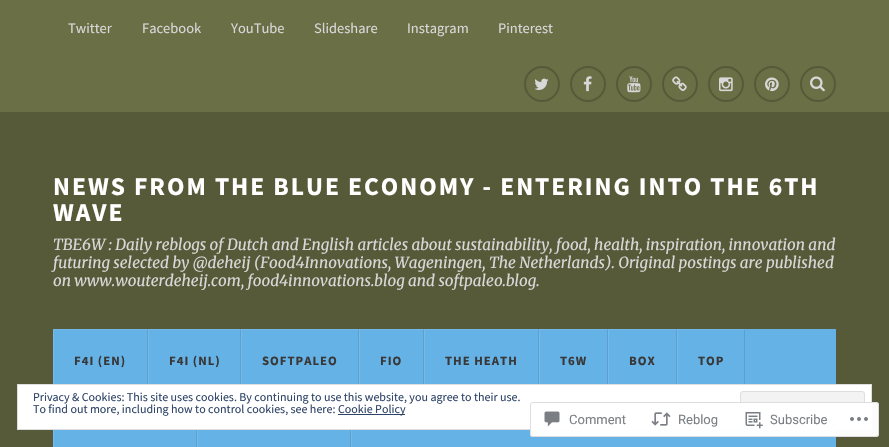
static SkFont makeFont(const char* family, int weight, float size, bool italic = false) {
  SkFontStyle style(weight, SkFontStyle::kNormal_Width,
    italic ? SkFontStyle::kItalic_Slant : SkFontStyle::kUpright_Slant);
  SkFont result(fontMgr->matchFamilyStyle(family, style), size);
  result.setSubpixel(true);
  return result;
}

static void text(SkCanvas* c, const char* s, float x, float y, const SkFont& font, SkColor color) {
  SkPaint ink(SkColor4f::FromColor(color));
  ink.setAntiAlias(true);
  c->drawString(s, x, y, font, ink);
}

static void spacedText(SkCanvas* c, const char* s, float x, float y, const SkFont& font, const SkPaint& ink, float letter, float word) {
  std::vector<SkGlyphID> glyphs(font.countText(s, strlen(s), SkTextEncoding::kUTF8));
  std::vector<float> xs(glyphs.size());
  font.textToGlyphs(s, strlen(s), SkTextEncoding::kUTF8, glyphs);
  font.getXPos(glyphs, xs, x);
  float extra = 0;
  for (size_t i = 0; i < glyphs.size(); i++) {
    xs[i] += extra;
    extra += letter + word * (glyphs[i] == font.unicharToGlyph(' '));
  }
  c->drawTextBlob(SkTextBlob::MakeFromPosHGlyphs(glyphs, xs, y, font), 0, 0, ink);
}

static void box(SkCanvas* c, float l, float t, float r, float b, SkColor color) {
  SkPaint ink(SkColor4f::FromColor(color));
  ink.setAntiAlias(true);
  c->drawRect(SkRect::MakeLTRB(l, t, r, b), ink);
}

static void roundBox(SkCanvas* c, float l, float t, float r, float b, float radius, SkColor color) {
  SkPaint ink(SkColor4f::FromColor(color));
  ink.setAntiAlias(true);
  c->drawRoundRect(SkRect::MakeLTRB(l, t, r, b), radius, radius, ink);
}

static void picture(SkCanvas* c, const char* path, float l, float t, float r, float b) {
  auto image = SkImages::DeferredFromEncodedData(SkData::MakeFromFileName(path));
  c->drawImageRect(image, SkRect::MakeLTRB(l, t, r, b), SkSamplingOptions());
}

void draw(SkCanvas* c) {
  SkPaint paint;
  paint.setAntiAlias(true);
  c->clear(0xff6a6f45);
  SkFont face1 = makeFont("Source Sans Pro", 400, 14.5f);
  text(c, "Twitter", 68, 33, face1, 0xffd8d8d8);
  text(c, "Facebook", 142, 33, face1, 0xffd8d8d8);
  text(c, "YouTube", 231, 33, face1, 0xffd8d8d8);
  text(c, "Slideshare", 314, 33, face1, 0xffd8d8d8);
  text(c, "Instagram", 407, 33, face1, 0xffd8d8d8);
  text(c, "Pinterest", 498, 33, face1, 0xffd8d8d8);
  paint.setStyle(SkPaint::kStroke_Style);
  paint.setStrokeWidth(2);
  paint.setColor(0xff565a38);
  c->drawCircle(542, 84, 17, paint);
  picture(c, "img_01.png", 534, 78, 549, 90);
  c->drawCircle(588, 84, 17, paint);
  picture(c, "img_02.png", 583, 76, 592, 92);
  c->drawCircle(634, 84, 17, paint);
  picture(c, "img_03.png", 627, 76, 641, 93);
  c->drawCircle(680, 84, 17, paint);
  picture(c, "img_04.png", 672, 76, 687, 91);
  c->drawCircle(726, 84, 17, paint);
  picture(c, "img_05.png", 719, 77, 733, 92);
  c->drawCircle(772, 84, 17, paint);
  picture(c, "img_06.png", 765, 77, 779, 92);
  c->drawCircle(818, 84, 17, paint);
  picture(c, "img_07.png", 810, 76, 825, 92);
  box(c, 0, 112, 889, 447, 0xff565a38);
  SkFont face2 = makeFont("Source Sans Pro", 700, 25.5f);
  paint.setStyle(SkPaint::kFill_Style);
  paint.setColor(0xffffffff);
  spacedText(c, "NEWS FROM THE BLUE ECONOMY - ENTERING INTO THE 6TH", 53, 195, face2, paint, 2, 0);
  spacedText(c, "WAVE", 53, 221, face2, paint, 2, 0);
  SkFont face3 = makeFont("Merriweather", 300, 15.3f, true);
  text(c, "TBE6W : Daily reblogs of Dutch and English articles about sustainability, food, health, inspiration, innovation and", 53, 250, face3, 0xffd8d8d8);
  text(c, "futuring selected by @deheij (Food4Innovations, Wageningen, The Netherlands). Original postings are published", 53, 268, face3, 0xffd8d8d8);
  text(c, "on www.wouterdeheij.com, food4innovations.blog and softpaleo.blog.", 53, 286, face3, 0xffd8d8d8);
  box(c, 53, 329, 836, 447, 0xff65b2e6);
  paint.setColor(0xff74bae9);
  c->drawPath(SkPathBuilder().moveTo(53, 329).lineTo(148, 329).lineTo(147, 330).lineTo(54, 330).close().detach(), paint);
  paint.setColor(0x1a000000);
  c->drawPath(SkPathBuilder().moveTo(148, 329).lineTo(148, 392).lineTo(147, 391).lineTo(147, 330).close().detach(), paint);
  paint.setColor(0x1affffff);
  c->drawPath(SkPathBuilder().moveTo(53, 392).lineTo(53, 329).lineTo(54, 330).lineTo(54, 391).close().detach(), paint);
  SkFont face4 = makeFont("Source Sans Pro", 700, 12.75f);
  paint.setColor(0xff383838);
  spacedText(c, "F4I (EN)", 74, 365, face4, paint, 1, 0);
  paint.setColor(0xff74bae9);
  c->drawPath(SkPathBuilder().moveTo(148, 329).lineTo(241, 329).lineTo(240, 330).lineTo(149, 330).close().detach(), paint);
  paint.setColor(0x1a000000);
  c->drawPath(SkPathBuilder().moveTo(241, 329).lineTo(241, 392).lineTo(240, 391).lineTo(240, 330).close().detach(), paint);
  paint.setColor(0x1affffff);
  c->drawPath(SkPathBuilder().moveTo(148, 392).lineTo(148, 329).lineTo(149, 330).lineTo(149, 391).close().detach(), paint);
  paint.setColor(0xff383838);
  spacedText(c, "F4I (NL)", 169, 365, face4, paint, 1, 0);
  paint.setColor(0xff74bae9);
  c->drawPath(SkPathBuilder().moveTo(241, 329).lineTo(359, 329).lineTo(358, 330).lineTo(242, 330).close().detach(), paint);
  paint.setColor(0x1a000000);
  c->drawPath(SkPathBuilder().moveTo(359, 329).lineTo(359, 392).lineTo(358, 391).lineTo(358, 330).close().detach(), paint);
  paint.setColor(0x1affffff);
  c->drawPath(SkPathBuilder().moveTo(241, 392).lineTo(241, 329).lineTo(242, 330).lineTo(242, 391).close().detach(), paint);
  paint.setColor(0xff383838);
  spacedText(c, "SOFTPALEO", 262, 365, face4, paint, 1, 0);
  paint.setColor(0xff74bae9);
  c->drawPath(SkPathBuilder().moveTo(359, 329).lineTo(424, 329).lineTo(423, 330).lineTo(360, 330).close().detach(), paint);
  paint.setColor(0x1a000000);
  c->drawPath(SkPathBuilder().moveTo(424, 329).lineTo(424, 392).lineTo(423, 391).lineTo(423, 330).close().detach(), paint);
  paint.setColor(0x1affffff);
  c->drawPath(SkPathBuilder().moveTo(359, 392).lineTo(359, 329).lineTo(360, 330).lineTo(360, 391).close().detach(), paint);
  paint.setColor(0xff383838);
  spacedText(c, "FIO", 380, 365, face4, paint, 1, 0);
  paint.setColor(0xff74bae9);
  c->drawPath(SkPathBuilder().moveTo(424, 329).lineTo(539, 329).lineTo(538, 330).lineTo(425, 330).close().detach(), paint);
  paint.setColor(0x1a000000);
  c->drawPath(SkPathBuilder().moveTo(539, 329).lineTo(539, 392).lineTo(538, 391).lineTo(538, 330).close().detach(), paint);
  paint.setColor(0x1affffff);
  c->drawPath(SkPathBuilder().moveTo(424, 392).lineTo(424, 329).lineTo(425, 330).lineTo(425, 391).close().detach(), paint);
  paint.setColor(0xff383838);
  spacedText(c, "THE HEATH", 445, 365, face4, paint, 1, 0);
  paint.setColor(0xff74bae9);
  c->drawPath(SkPathBuilder().moveTo(539, 329).lineTo(608, 329).lineTo(607, 330).lineTo(540, 330).close().detach(), paint);
  paint.setColor(0x1a000000);
  c->drawPath(SkPathBuilder().moveTo(608, 329).lineTo(608, 392).lineTo(607, 391).lineTo(607, 330).close().detach(), paint);
  paint.setColor(0x1affffff);
  c->drawPath(SkPathBuilder().moveTo(539, 392).lineTo(539, 329).lineTo(540, 330).lineTo(540, 391).close().detach(), paint);
  paint.setColor(0xff383838);
  spacedText(c, "T6W", 560, 365, face4, paint, 1, 0);
  paint.setColor(0xff74bae9);
  c->drawPath(SkPathBuilder().moveTo(608, 329).lineTo(677, 329).lineTo(676, 330).lineTo(609, 330).close().detach(), paint);
  paint.setColor(0x1a000000);
  c->drawPath(SkPathBuilder().moveTo(677, 329).lineTo(677, 392).lineTo(676, 391).lineTo(676, 330).close().detach(), paint);
  paint.setColor(0x1affffff);
  c->drawPath(SkPathBuilder().moveTo(608, 392).lineTo(608, 329).lineTo(609, 330).lineTo(609, 391).close().detach(), paint);
  paint.setColor(0xff383838);
  spacedText(c, "BOX", 629, 365, face4, paint, 1, 0);
  paint.setColor(0xff74bae9);
  c->drawPath(SkPathBuilder().moveTo(677, 329).lineTo(745, 329).lineTo(744, 330).lineTo(678, 330).close().detach(), paint);
  paint.setColor(0x1a000000);
  c->drawPath(SkPathBuilder().moveTo(745, 329).lineTo(745, 392).lineTo(744, 391).lineTo(744, 330).close().detach(), paint);
  paint.setColor(0x1affffff);
  c->drawPath(SkPathBuilder().moveTo(677, 392).lineTo(677, 329).lineTo(678, 330).lineTo(678, 391).close().detach(), paint);
  paint.setColor(0xff383838);
  spacedText(c, "TOP", 698, 365, face4, paint, 1, 0);
  paint.setColor(0x1a000000);
  c->drawPath(SkPathBuilder().moveTo(197, 392).lineTo(197, 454).lineTo(196, 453).lineTo(196, 393).close().detach(), paint);
  paint.setColor(0x1affffff);
  c->drawPath(SkPathBuilder().moveTo(53, 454).lineTo(53, 392).lineTo(54, 393).lineTo(54, 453).close().detach(), paint);
  paint.setColor(0x1a000000);
  c->drawPath(SkPathBuilder().moveTo(351, 392).lineTo(351, 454).lineTo(350, 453).lineTo(350, 393).close().detach(), paint);
  paint.setColor(0x1affffff);
  c->drawPath(SkPathBuilder().moveTo(197, 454).lineTo(197, 392).lineTo(198, 393).lineTo(198, 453).close().detach(), paint);
  box(c, 351, 430, 352, 447, 0xff74bae9);
  paint.setColor(0xffffffff);
  c->drawRect(SkRect::MakeLTRB(17.5f, 384.5f, 871.5f, 429.5f), paint);
  paint.setStyle(SkPaint::kStroke_Style);
  paint.setStrokeWidth(1);
  paint.setColor(0xffdedede);
  c->drawRect(SkRect::MakeLTRB(17.5f, 384.5f, 871.5f, 429.5f), paint);
  SkFont face5 = makeFont("Source Sans Pro", 400, 12);
  text(c, "Privacy & Cookies: This site uses cookies. By continuing to use this website, you agree to their use.", 33, 401, face5, 0xff2e4467);
  paint.setStyle(SkPaint::kFill_Style);
  paint.setColor(0xfff3f3f3);
  c->drawRoundRect(SkRect::MakeLTRB(740.5f, 391.5f, 864.5f, 422.5f), 2.5f, 2.5f, paint);
  paint.setStyle(SkPaint::kStroke_Style);
  paint.setColor(0xffdedede);
  c->drawRoundRect(SkRect::MakeLTRB(740.5f, 391.5f, 864.5f, 422.5f), 2.5f, 2.5f, paint);
  text(c, "To find out more, including how to control cookies, see here:", 33, 413, face5, 0xff2e4467);
  box(c, 338, 414, 405, 415, 0xff2e4467);
  text(c, "Cookie Policy", 338, 413, face5, 0xff2e4467);
  roundBox(c, 530, 402, 879, 437, 3, 0xfaffffff);
  paint.setColor(0xfadcdcde);
  c->drawRoundRect(SkRect::MakeLTRB(530.5f, 402.5f, 878.5f, 436.5f), 2.5f, 2.5f, paint);
  picture(c, "img_08.png", 544, 411, 560, 427);
  SkFont face6 = makeFont("Roboto", 400, 13);
  text(c, "Comment", 569, 424, face6, 0xff7b7f85);
  picture(c, "img_09.png", 651, 412, 671, 426);
  text(c, "Reblog", 678, 424, face6, 0xff7b7f85);
  picture(c, "img_10.png", 745, 412, 763, 429);
  text(c, "Subscribe", 770, 424, face6, 0xff7b7f85);
  picture(c, "img_11.png", 850, 417, 868, 421);
}
